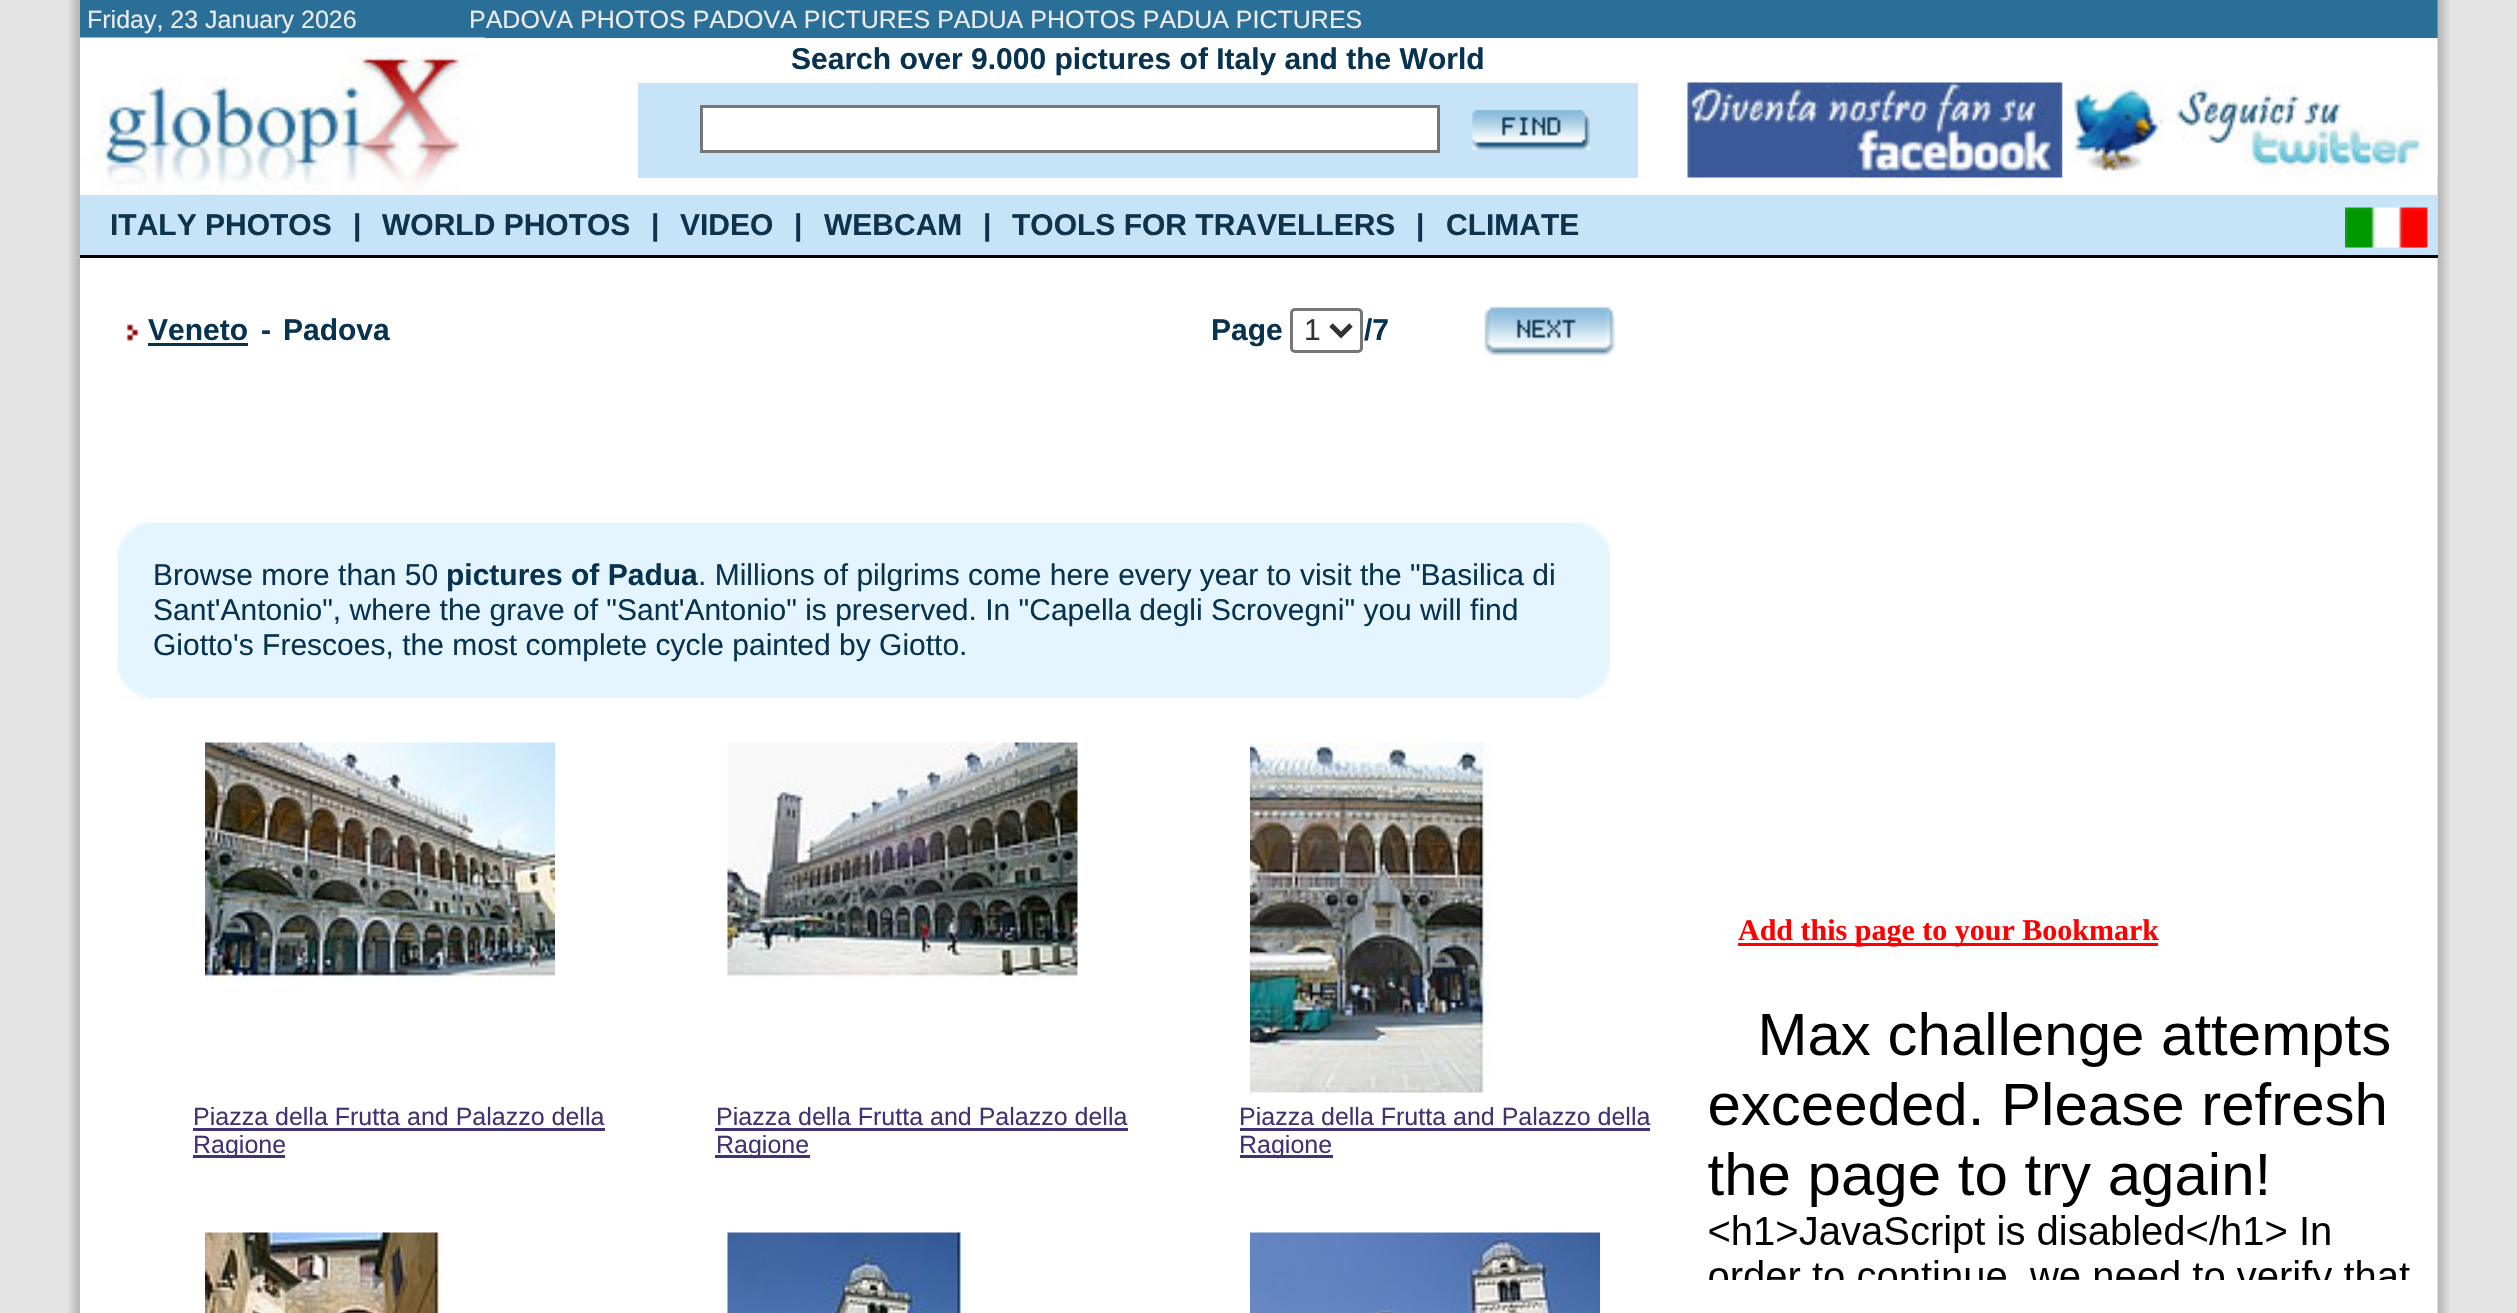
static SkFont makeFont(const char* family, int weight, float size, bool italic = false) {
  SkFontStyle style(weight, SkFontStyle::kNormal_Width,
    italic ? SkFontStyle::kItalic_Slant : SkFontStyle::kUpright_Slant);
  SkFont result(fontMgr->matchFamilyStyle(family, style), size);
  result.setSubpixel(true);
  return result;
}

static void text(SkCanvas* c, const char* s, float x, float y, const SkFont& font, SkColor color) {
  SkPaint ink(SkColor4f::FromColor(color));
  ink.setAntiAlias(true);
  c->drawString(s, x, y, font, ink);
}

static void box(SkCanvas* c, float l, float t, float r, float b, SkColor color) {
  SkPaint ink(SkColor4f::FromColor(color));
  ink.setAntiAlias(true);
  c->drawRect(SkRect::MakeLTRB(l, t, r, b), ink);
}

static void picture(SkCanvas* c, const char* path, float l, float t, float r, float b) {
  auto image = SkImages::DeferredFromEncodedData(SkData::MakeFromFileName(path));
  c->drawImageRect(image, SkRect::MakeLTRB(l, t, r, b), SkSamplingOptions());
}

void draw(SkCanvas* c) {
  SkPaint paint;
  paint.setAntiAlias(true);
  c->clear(0xffe4e4e4);
  picture(c, "img_01.png", 68, 0, 80, 258);
  box(c, 80, 0, 2438, 38, 0xff2a6f98);
  SkFont face1 = makeFont("Liberation Sans", 400, 25);
  text(c, "Friday, 23 January 2026", 87, 28, face1, 0xffebebeb);
  text(c, "PADOVA PHOTOS PADOVA PICTURES PADUA PHOTOS PADUA PICTURES", 469, 28, face1, 0xffebebeb);
  box(c, 485, 38, 2438, 195, 0xffffffff);
  picture(c, "img_02.png", 80, 37, 485, 195);
  SkFont face2 = makeFont("Liberation Sans", 700, 30);
  text(c, "Search over 9.000 pictures of Italy and the World", 791, 69, face2, 0xff073350);
  box(c, 638, 83, 1638, 178, 0xffc7e3f8);
  paint.setColor(0xffffffff);
  c->drawRect(SkRect::MakeLTRB(701.5f, 106.5f, 1438.5f, 151.5f), paint);
  paint.setStyle(SkPaint::kStroke_Style);
  paint.setStrokeWidth(3);
  paint.setColor(0xff767676);
  c->drawRect(SkRect::MakeLTRB(701.5f, 106.5f, 1438.5f, 151.5f), paint);
  picture(c, "img_03.png", 1472, 110, 1590, 150);
  picture(c, "img_04.png", 1687, 82, 2063, 178);
  picture(c, "img_06.png", 2437, 0, 2450, 258);
  picture(c, "img_05.png", 2062, 82, 2438, 178);
  box(c, 80, 195, 2438, 255, 0xffc7e3f8);
  text(c, "ITALY PHOTOS", 110, 235, face2, 0xff0f334d);
  text(c, "|", 353, 235, face2, 0xff0f334d);
  text(c, "WORLD PHOTOS", 382, 235, face2, 0xff0f334d);
  text(c, "|", 651, 235, face2, 0xff0f334d);
  text(c, "VIDEO", 680, 235, face2, 0xff0f334d);
  text(c, "|", 794, 235, face2, 0xff0f334d);
  text(c, "WEBCAM", 824, 235, face2, 0xff0f334d);
  text(c, "|", 983, 235, face2, 0xff0f334d);
  text(c, "TOOLS FOR TRAVELLERS", 1012, 235, face2, 0xff0f334d);
  text(c, "|", 1416, 235, face2, 0xff0f334d);
  text(c, "CLIMATE", 1446, 235, face2, 0xff0f334d);
  picture(c, "img_07.png", 2345, 207, 2428, 248);
  box(c, 80, 255, 2438, 258, 0xff000000);
  picture(c, "img_08.png", 68, 257, 80, 1313);
  box(c, 80, 258, 2438, 1313, 0xffffffff);
  picture(c, "img_09.png", 126, 324, 139, 341);
  text(c, "Veneto", 148, 340, face2, 0xff073350);
  box(c, 148, 343, 248, 346, 0xff073350);
  text(c, "-", 261, 340, face2, 0xff073350);
  text(c, "Padova", 283, 340, face2, 0xff073350);
  text(c, "Page", 1211, 340, face2, 0xff073350);
  c->drawRoundRect(SkRect::MakeLTRB(1291.5f, 309.5f, 1361.5f, 351.5f), 3.5f, 3.5f, paint);
  paint.setStrokeWidth(5);
  paint.setColor(0xff333333);
  c->drawPath(SkPathBuilder().moveTo(1331, 325).lineTo(1341, 335).lineTo(1351, 325).detach(), paint);
  SkFont face3 = makeFont("Liberation Sans", 400, 30);
  text(c, "1", 1304, 340, face3, 0xff333333);
  text(c, "/7", 1364, 340, face2, 0xff073350);
  picture(c, "img_10.png", 1484, 306, 1616, 356);
  box(c, 118, 523, 1610, 698, 0xffe4f5ff);
  picture(c, "img_11.png", 117, 522, 153, 558);
  picture(c, "img_12.png", 1575, 522, 1610, 553);
  text(c, "Browse more than 50", 153, 585, face3, 0xff073350);
  text(c, "pictures of Padua", 446, 585, face2, 0xff073350);
  text(c, ". Millions of pilgrims come here every year to visit the \"Basilica di", 698, 585, face3, 0xff073350);
  text(c, "Sant'Antonio\", where the grave of \"Sant'Antonio\" is preserved. In \"Capella degli Scrovegni\" you will find", 153, 620, face3, 0xff073350);
  text(c, "Giotto's Frescoes, the most complete cycle painted by Giotto.", 153, 655, face3, 0xff073350);
  picture(c, "img_13.png", 117, 662, 148, 698);
  picture(c, "img_14.png", 1580, 667, 1610, 698);
  picture(c, "img_15.png", 205, 742, 555, 984);
  picture(c, "img_16.png", 727, 742, 1078, 983);
  picture(c, "img_17.png", 1250, 742, 1491, 1093);
  text(c, "Piazza della Frutta and Palazzo della", 193, 1125, face1, 0xff413373);
  box(c, 193, 1128, 605, 1131, 0xff413373);
  box(c, 193, 1155, 285, 1158, 0xff413373);
  text(c, "Ragione", 193, 1153, face1, 0xff413373);
  text(c, "Piazza della Frutta and Palazzo della", 716, 1125, face1, 0xff413373);
  box(c, 715, 1128, 1128, 1131, 0xff413373);
  box(c, 715, 1155, 810, 1158, 0xff413373);
  text(c, "Ragione", 716, 1153, face1, 0xff413373);
  text(c, "Piazza della Frutta and Palazzo della", 1239, 1125, face1, 0xff413373);
  box(c, 1240, 1128, 1650, 1131, 0xff413373);
  box(c, 1240, 1155, 1333, 1158, 0xff413373);
  text(c, "Ragione", 1239, 1153, face1, 0xff413373);
  picture(c, "img_18.png", 205, 1232, 444, 1313);
  picture(c, "img_19.png", 727, 1232, 965, 1313);
  picture(c, "img_20.png", 1250, 1232, 1600, 1313);
  box(c, 1738, 943, 2158, 946, 0xffff0000);
  SkFont face4 = makeFont("Liberation Serif", 700, 30);
  text(c, "Add this page to your Bookmark", 1738, 940, face4, 0xffff0000);
  picture(c, "img_21.png", 1708, 1012, 2410, 1280);
  picture(c, "img_22.png", 2437, 257, 2450, 1313);
}
